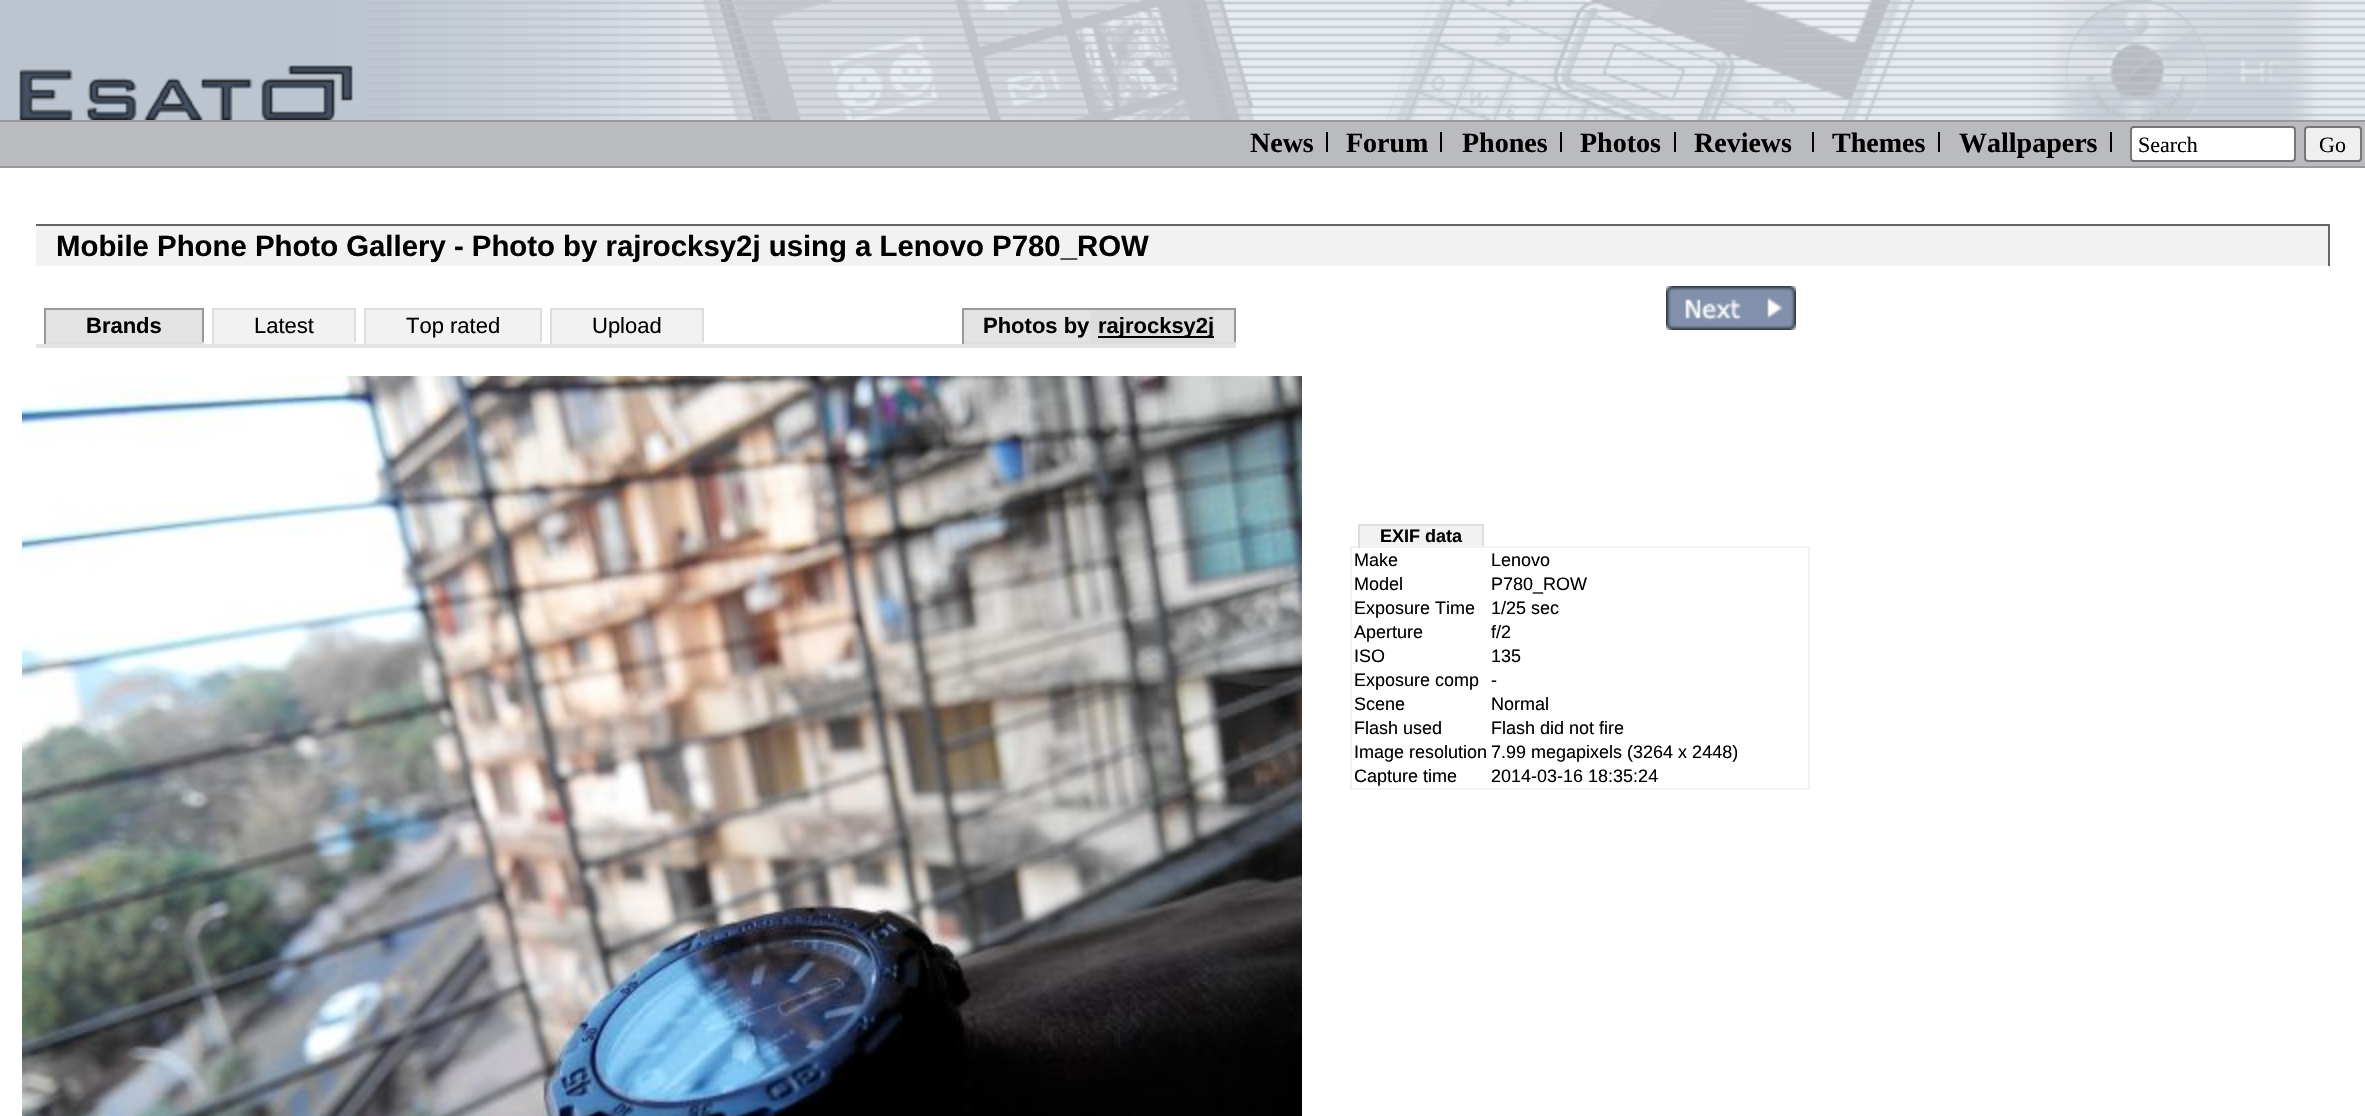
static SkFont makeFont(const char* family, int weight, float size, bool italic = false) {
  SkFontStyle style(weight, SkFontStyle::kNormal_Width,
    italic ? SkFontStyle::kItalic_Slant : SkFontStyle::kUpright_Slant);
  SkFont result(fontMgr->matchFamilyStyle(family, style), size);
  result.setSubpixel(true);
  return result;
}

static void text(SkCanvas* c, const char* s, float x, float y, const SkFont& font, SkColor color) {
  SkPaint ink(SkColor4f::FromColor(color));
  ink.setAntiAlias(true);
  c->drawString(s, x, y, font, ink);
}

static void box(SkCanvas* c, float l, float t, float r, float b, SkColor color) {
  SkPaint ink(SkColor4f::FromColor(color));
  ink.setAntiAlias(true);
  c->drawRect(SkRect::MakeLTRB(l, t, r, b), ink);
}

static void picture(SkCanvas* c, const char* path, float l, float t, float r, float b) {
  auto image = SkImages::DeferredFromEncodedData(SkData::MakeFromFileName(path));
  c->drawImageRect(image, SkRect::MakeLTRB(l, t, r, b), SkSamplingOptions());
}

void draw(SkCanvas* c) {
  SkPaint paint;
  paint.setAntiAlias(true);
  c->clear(0xffffffff);
  picture(c, "img_01.png", 0, 0, 2365, 120);
  box(c, 0, 122, 2365, 166, 0xffb9bbbf);
  box(c, 0, 120, 2365, 122, 0xff999999);
  box(c, 0, 166, 2365, 168, 0xff999999);
  SkFont face1 = makeFont("Liberation Serif", 700, 28);
  text(c, "News", 1250, 152, face1, 0xff000000);
  box(c, 1326, 132, 1328, 152, 0xff000000);
  text(c, "Forum", 1346, 152, face1, 0xff000000);
  box(c, 1440, 132, 1442, 152, 0xff000000);
  text(c, "Phones", 1462, 152, face1, 0xff000000);
  box(c, 1560, 132, 1562, 152, 0xff000000);
  text(c, "Photos", 1580, 152, face1, 0xff000000);
  box(c, 1674, 132, 1676, 152, 0xff000000);
  text(c, "Reviews", 1694, 152, face1, 0xff000000);
  box(c, 1812, 132, 1814, 152, 0xff000000);
  text(c, "Themes", 1832, 152, face1, 0xff000000);
  box(c, 1938, 132, 1940, 152, 0xff000000);
  text(c, "Wallpapers", 1959, 152, face1, 0xff000000);
  box(c, 2110, 132, 2112, 152, 0xff000000);
  paint.setColor(0xffffffff);
  c->drawRoundRect(SkRect::MakeLTRB(2131, 127, 2295, 161), 3, 3, paint);
  paint.setStyle(SkPaint::kStroke_Style);
  paint.setStrokeWidth(2);
  paint.setColor(0xff767676);
  c->drawRoundRect(SkRect::MakeLTRB(2131, 127, 2295, 161), 3, 3, paint);
  SkFont face2 = makeFont("Liberation Serif", 400, 22);
  text(c, "Search", 2138, 152, face2, 0xff000000);
  paint.setStyle(SkPaint::kFill_Style);
  paint.setColor(0xffefefef);
  c->drawRoundRect(SkRect::MakeLTRB(2305, 127, 2361, 161), 3, 3, paint);
  paint.setStyle(SkPaint::kStroke_Style);
  paint.setColor(0xff767676);
  c->drawRoundRect(SkRect::MakeLTRB(2305, 127, 2361, 161), 3, 3, paint);
  text(c, "Go", 2319, 152, face2, 0xff000000);
  box(c, 36, 226, 2328, 266, 0xfff2f2f2);
  box(c, 36, 224, 2330, 226, 0xff666666);
  box(c, 2328, 224, 2330, 266, 0xff666666);
  SkFont face3 = makeFont("Liberation Sans", 700, 29.35f);
  text(c, "Mobile Phone Photo Gallery - Photo by rajrocksy2j using a Lenovo P780_ROW", 56, 256, face3, 0xff000000);
  box(c, 36, 344, 1236, 348, 0xffe3e3e3);
  box(c, 46, 310, 202, 342, 0xffe3e3e3);
  box(c, 44, 308, 204, 310, 0xff999999);
  box(c, 202, 308, 204, 344, 0xff999999);
  box(c, 44, 342, 204, 344, 0xffdddddd);
  box(c, 44, 308, 46, 344, 0xff999999);
  SkFont face4 = makeFont("Liberation Sans", 700, 22);
  text(c, "Brands", 86, 333, face4, 0xff000000);
  box(c, 214, 310, 354, 342, 0xfff2f2f2);
  box(c, 212, 308, 356, 310, 0xffdddddd);
  box(c, 354, 308, 356, 344, 0xffdddddd);
  box(c, 212, 342, 356, 344, 0xfff2f2f2);
  box(c, 212, 308, 214, 344, 0xffdddddd);
  SkFont face5 = makeFont("Liberation Sans", 400, 22);
  text(c, "Latest", 254, 333, face5, 0xff000000);
  box(c, 366, 310, 540, 342, 0xfff2f2f2);
  box(c, 364, 308, 542, 310, 0xffdddddd);
  box(c, 540, 308, 542, 344, 0xffdddddd);
  box(c, 364, 342, 542, 344, 0xfff2f2f2);
  box(c, 364, 308, 366, 344, 0xffdddddd);
  text(c, "Top rated", 406, 333, face5, 0xff000000);
  box(c, 552, 310, 702, 342, 0xfff2f2f2);
  box(c, 550, 308, 704, 310, 0xffdddddd);
  box(c, 702, 308, 704, 344, 0xffdddddd);
  box(c, 550, 342, 704, 344, 0xfff2f2f2);
  box(c, 550, 308, 552, 344, 0xffdddddd);
  text(c, "Upload", 592, 333, face5, 0xff000000);
  box(c, 964, 310, 1234, 342, 0xffe3e3e3);
  box(c, 962, 308, 1236, 310, 0xff999999);
  box(c, 1234, 308, 1236, 344, 0xff999999);
  box(c, 962, 342, 1236, 344, 0xffdddddd);
  box(c, 962, 308, 964, 344, 0xff999999);
  text(c, "Photos by", 983, 333, face4, 0xff000000);
  box(c, 1090, 310, 1214, 342, 0xffdddddd);
  box(c, 1098, 336, 1214, 338, 0xff000000);
  text(c, "rajrocksy2j", 1098, 333, face4, 0xff000000);
  picture(c, "img_02.png", 1666, 286, 1796, 330);
  picture(c, "img_03.png", 22, 376, 1302, 1116);
  box(c, 1360, 526, 1482, 546, 0xfff2f2f2);
  SkFont face6 = makeFont("Liberation Sans", 700, 18);
  text(c, "EXIF data", 1380, 542, face6, 0xff000000);
  box(c, 1358, 524, 1484, 526, 0xffdddddd);
  paint.setColor(0xfff2f2f2);
  c->drawRect(SkRect::MakeLTRB(1351, 547, 1809, 789), paint);
  box(c, 1482, 524, 1484, 548, 0xffdddddd);
  box(c, 1482, 546, 1484, 548, 0xfff2f2f2);
  box(c, 1358, 524, 1360, 548, 0xffdddddd);
  SkFont face7 = makeFont("Liberation Sans", 400, 18);
  text(c, "Make", 1354, 566, face7, 0xff000000);
  text(c, "Lenovo", 1491, 566, face7, 0xff000000);
  text(c, "Model", 1354, 590, face7, 0xff000000);
  text(c, "P780_ROW", 1491, 590, face7, 0xff000000);
  text(c, "Exposure Time", 1354, 614, face7, 0xff000000);
  text(c, "1/25 sec", 1491, 614, face7, 0xff000000);
  text(c, "Aperture", 1354, 638, face7, 0xff000000);
  text(c, "f/2", 1491, 638, face7, 0xff000000);
  text(c, "ISO", 1354, 662, face7, 0xff000000);
  text(c, "135", 1491, 662, face7, 0xff000000);
  text(c, "Exposure comp", 1354, 686, face7, 0xff000000);
  text(c, "-", 1491, 686, face7, 0xff000000);
  text(c, "Scene", 1354, 710, face7, 0xff000000);
  text(c, "Normal", 1491, 710, face7, 0xff000000);
  text(c, "Flash used", 1354, 734, face7, 0xff000000);
  text(c, "Flash did not fire", 1491, 734, face7, 0xff000000);
  text(c, "Image resolution", 1354, 758, face7, 0xff000000);
  text(c, "7.99 megapixels (3264 x 2448)", 1491, 758, face7, 0xff000000);
  text(c, "Capture time", 1354, 782, face7, 0xff000000);
  text(c, "2014-03-16 18:35:24", 1491, 782, face7, 0xff000000);
}
